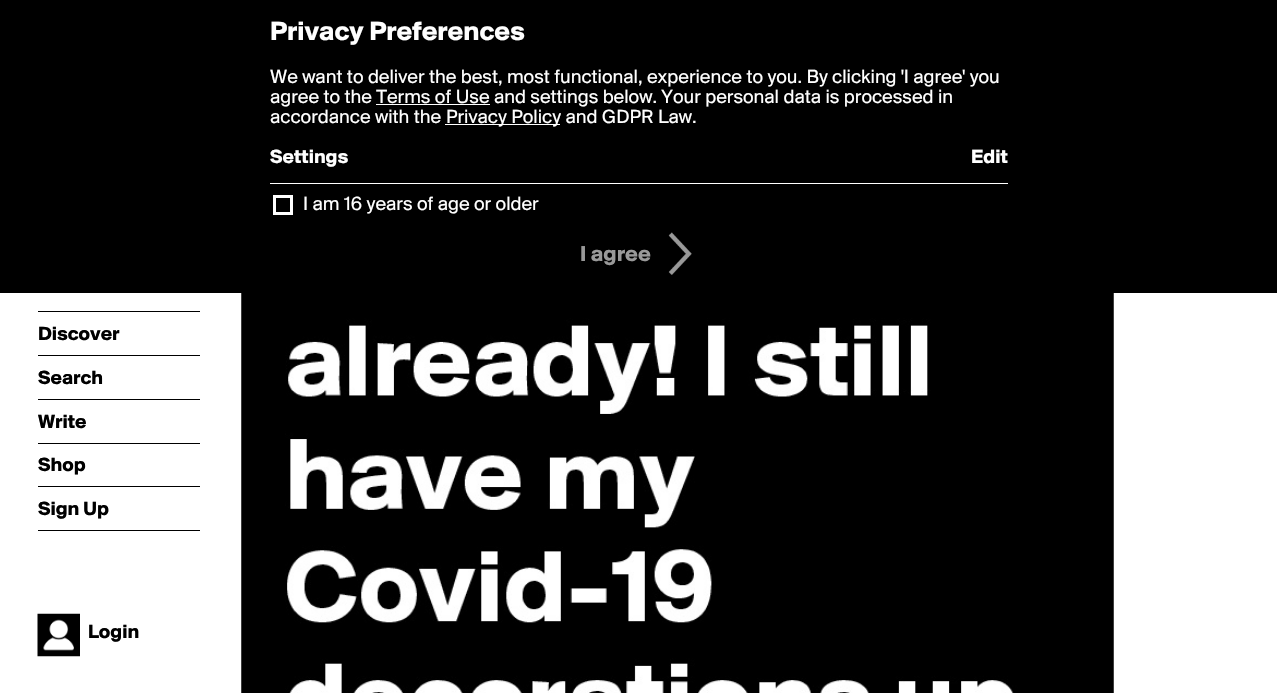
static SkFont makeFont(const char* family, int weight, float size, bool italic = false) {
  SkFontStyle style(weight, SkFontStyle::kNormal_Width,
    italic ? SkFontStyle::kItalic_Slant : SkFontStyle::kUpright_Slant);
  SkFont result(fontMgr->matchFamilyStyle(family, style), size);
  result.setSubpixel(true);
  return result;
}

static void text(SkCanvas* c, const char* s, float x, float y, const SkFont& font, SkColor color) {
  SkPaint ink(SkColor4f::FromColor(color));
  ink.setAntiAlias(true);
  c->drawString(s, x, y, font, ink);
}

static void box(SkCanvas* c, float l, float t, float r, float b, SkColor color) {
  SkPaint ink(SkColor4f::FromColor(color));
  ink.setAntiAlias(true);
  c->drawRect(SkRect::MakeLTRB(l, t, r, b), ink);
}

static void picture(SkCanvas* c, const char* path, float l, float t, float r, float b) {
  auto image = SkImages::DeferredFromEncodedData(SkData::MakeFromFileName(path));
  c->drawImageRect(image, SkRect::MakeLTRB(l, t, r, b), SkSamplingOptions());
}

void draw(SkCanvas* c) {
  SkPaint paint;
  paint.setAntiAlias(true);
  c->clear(0xffffffff);
  box(c, 0, 0, 1277, 293, 0xff000000);
  SkFont face1 = makeFont("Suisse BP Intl", 700, 27.5f);
  text(c, "Privacy Preferences", 270, 40, face1, 0xffffffff);
  SkFont face2 = makeFont("Suisse BP Intl", 400, 20);
  text(c, "We want to deliver the best, most functional, experience to you. By clicking 'I agree' you", 270, 83, face2, 0xffffffff);
  text(c, "agree to the Terms of Use and settings below. Your personal data is processed in", 270, 103, face2, 0xffffffff);
  box(c, 376, 104, 490, 105, 0xffffffff);
  text(c, "accordance with the", 270, 123, face2, 0xffffffff);
  box(c, 445, 124, 560, 125, 0xffffffff);
  text(c, "Privacy Policy and GDPR Law.", 446, 123, face2, 0xffffffff);
  SkFont face3 = makeFont("Suisse BP Intl", 700, 20);
  text(c, "Settings", 270, 163, face3, 0xffffffff);
  text(c, "Edit", 971, 163, face3, 0xffffffff);
  box(c, 270, 183, 1008, 184, 0xffffffff);
  paint.setStyle(SkPaint::kStroke_Style);
  paint.setStrokeWidth(3);
  paint.setColor(0xffffffff);
  c->drawRect(SkRect::MakeLTRB(274.5f, 196.5f, 291.5f, 213.5f), paint);
  text(c, "I am 16 years of age or older", 303, 210, face2, 0xffffffff);
  SkFont face4 = makeFont("Suisse BP Intl", 700, 22.5f);
  text(c, "I agree", 580, 261, face4, 0xff999999);
  picture(c, "img_01.png", 668, 232, 692, 275);
  box(c, 38, 311, 200, 312, 0xff000000);
  box(c, 38, 355, 200, 356, 0xff000000);
  text(c, "Discover", 38, 340, face3, 0xff000000);
  box(c, 38, 399, 200, 400, 0xff000000);
  text(c, "Search", 38, 384, face3, 0xff000000);
  box(c, 38, 443, 200, 444, 0xff000000);
  text(c, "Write", 38, 428, face3, 0xff000000);
  box(c, 38, 486, 200, 487, 0xff000000);
  text(c, "Shop", 38, 471, face3, 0xff000000);
  box(c, 38, 530, 200, 531, 0xff000000);
  text(c, "Sign Up", 38, 515, face3, 0xff000000);
  picture(c, "img_02.png", 37, 613, 80, 657);
  text(c, "Login", 88, 638, face3, 0xff000000);
  picture(c, "img_03.png", 241, 293, 1114, 693);
}
